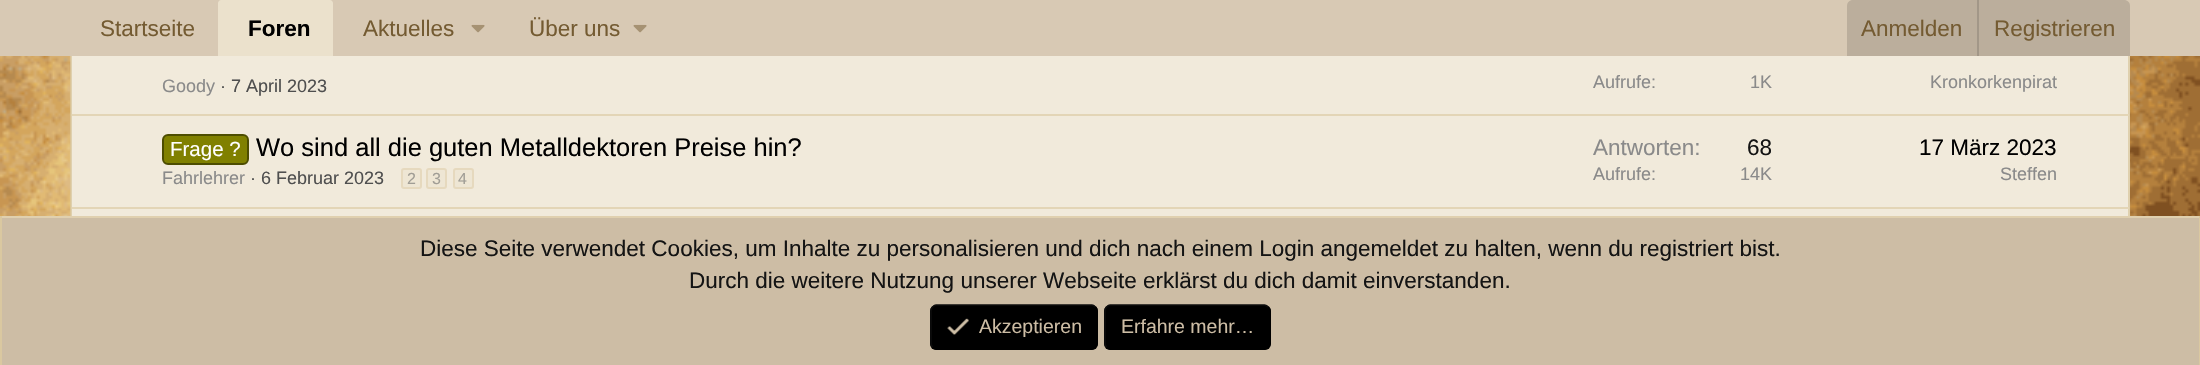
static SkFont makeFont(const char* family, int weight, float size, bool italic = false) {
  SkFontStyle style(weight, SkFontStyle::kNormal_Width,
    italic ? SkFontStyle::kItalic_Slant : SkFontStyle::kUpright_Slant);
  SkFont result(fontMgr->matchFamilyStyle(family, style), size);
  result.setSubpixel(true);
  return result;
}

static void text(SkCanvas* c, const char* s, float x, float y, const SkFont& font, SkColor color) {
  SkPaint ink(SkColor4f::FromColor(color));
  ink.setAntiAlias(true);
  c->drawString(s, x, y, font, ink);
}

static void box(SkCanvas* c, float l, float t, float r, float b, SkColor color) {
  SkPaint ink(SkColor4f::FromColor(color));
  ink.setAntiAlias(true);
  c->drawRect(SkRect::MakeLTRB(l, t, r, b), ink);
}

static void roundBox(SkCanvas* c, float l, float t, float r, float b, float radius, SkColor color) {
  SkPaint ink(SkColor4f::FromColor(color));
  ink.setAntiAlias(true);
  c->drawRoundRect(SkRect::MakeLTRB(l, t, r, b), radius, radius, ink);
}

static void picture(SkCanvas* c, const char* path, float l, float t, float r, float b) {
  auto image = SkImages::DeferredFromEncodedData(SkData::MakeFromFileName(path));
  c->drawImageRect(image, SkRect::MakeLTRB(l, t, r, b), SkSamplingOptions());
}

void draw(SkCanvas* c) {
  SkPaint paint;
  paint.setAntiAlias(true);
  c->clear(0xffffffff);
  picture(c, "img_01.png", 0, 56, 2200, 216);
  box(c, 71, 56, 2130, 216, 0xfff1eadb);
  paint.setStyle(SkPaint::kStroke_Style);
  paint.setStrokeWidth(1.5f);
  paint.setColor(0xffdac8a0);
  c->drawPath(SkPathBuilder().moveTo(2127.5f, -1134.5f).cubicTo(2128.5f, -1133.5f, 2129, -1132.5f, 2129, -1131).lineTo(2129, 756).cubicTo(2129, 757.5f, 2128.5f, 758.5f, 2127.5f, 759.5f).detach(), paint);
  c->drawPath(SkPathBuilder().moveTo(73, 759.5f).cubicTo(72, 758.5f, 71, 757.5f, 71, 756).lineTo(71, -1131).cubicTo(71, -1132.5f, 72, -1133.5f, 73, -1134.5f).detach(), paint);
  box(c, 0, 0, 2200, 56, 0xffd8c9b4);
  SkFont face1 = makeFont("Liberation Sans", 400, 22.5f);
  text(c, "Startseite", 100, 36, face1, 0xff745b32);
  paint.setStyle(SkPaint::kFill_Style);
  paint.setColor(0xffebe1cc);
  c->drawPath(SkPathBuilder().moveTo(221, 0).lineTo(330, 0).cubicTo(331.5f, 0, 333, 1.5f, 333, 3).lineTo(333, 56).lineTo(218, 56).lineTo(218, 3).cubicTo(218, 1.5f, 219.5f, 0, 221, 0).close().detach(), paint);
  SkFont face2 = makeFont("Liberation Sans", 700, 22.5f);
  text(c, "Foren", 248, 36, face2, 0xff000000);
  text(c, "Aktuelles", 363, 36, face1, 0xff745b32);
  picture(c, "img_02.png", 471, 24, 485, 33);
  text(c, "Über uns", 529, 36, face1, 0xff745b32);
  picture(c, "img_02.png", 633, 24, 647, 33);
  paint.setColor(0xffbbae9c);
  c->drawPath(SkPathBuilder().moveTo(1853, 0).lineTo(2124, 0).cubicTo(2127.5f, 0, 2130, 2.5f, 2130, 6).lineTo(2130, 56).lineTo(1847, 56).lineTo(1847, 6).cubicTo(1847, 2.5f, 1849.5f, 0, 1853, 0).close().detach(), paint);
  text(c, "Anmelden", 1861, 36, face1, 0xff745b32);
  box(c, 1977, 0, 1979, 56, 0xffa29788);
  text(c, "Registrieren", 1994, 36, face1, 0xff745b32);
  SkFont face3 = makeFont("Liberation Sans", 400, 18);
  text(c, "Goody", 162, 92, face3, 0xff8a8a8a);
  text(c, "· 7 April 2023", 220, 92, face3, 0xff4f4f4f);
  text(c, "Aufrufe:", 1593, 88, face3, 0xff8a8a8a);
  text(c, "1K", 1750, 88, face3, 0xff8a8a8a);
  text(c, "Kronkorkenpirat", 1930, 88, face3, 0xff8a8a8a);
  box(c, 72, 114, 2129, 116, 0xffe3d5b6);
  paint.setColor(0xff808000);
  c->drawRoundRect(SkRect::MakeLTRB(163, 135, 248, 164), 5, 5, paint);
  paint.setStyle(SkPaint::kStroke_Style);
  paint.setStrokeWidth(2);
  paint.setColor(0xff4d4d00);
  c->drawRoundRect(SkRect::MakeLTRB(163, 135, 248, 164), 5, 5, paint);
  SkFont face4 = makeFont("Liberation Sans", 400, 20.5f);
  text(c, "Frage ?", 170, 156, face4, 0xffffffff);
  SkFont face5 = makeFont("Liberation Sans", 400, 25.5f);
  text(c, "Wo sind all die guten Metalldektoren Preise hin?", 256, 156, face5, 0xff000000);
  text(c, "Fahrlehrer", 162, 184, face3, 0xff8a8a8a);
  text(c, "· 6 Februar 2023", 250, 184, face3, 0xff4f4f4f);
  paint.setStyle(SkPaint::kFill_Style);
  paint.setColor(0xffeee6d4);
  c->drawRoundRect(SkRect::MakeLTRB(402, 169, 421, 188), 2, 2, paint);
  paint.setStyle(SkPaint::kStroke_Style);
  paint.setColor(0xffe6d9be);
  c->drawRoundRect(SkRect::MakeLTRB(402, 169, 421, 188), 2, 2, paint);
  SkFont face6 = makeFont("Liberation Sans", 400, 16);
  text(c, "2", 407, 184, face6, 0xffa09d95);
  paint.setStyle(SkPaint::kFill_Style);
  paint.setColor(0xffeee6d4);
  c->drawRoundRect(SkRect::MakeLTRB(427, 169, 446, 188), 2, 2, paint);
  paint.setStyle(SkPaint::kStroke_Style);
  paint.setColor(0xffe6d9be);
  c->drawRoundRect(SkRect::MakeLTRB(427, 169, 446, 188), 2, 2, paint);
  text(c, "3", 432, 184, face6, 0xffa09d95);
  paint.setStyle(SkPaint::kFill_Style);
  paint.setColor(0xffeee6d4);
  c->drawRoundRect(SkRect::MakeLTRB(454, 169, 473, 188), 2, 2, paint);
  paint.setStyle(SkPaint::kStroke_Style);
  paint.setColor(0xffe6d9be);
  c->drawRoundRect(SkRect::MakeLTRB(454, 169, 473, 188), 2, 2, paint);
  text(c, "4", 458, 184, face6, 0xffa09d95);
  text(c, "Antworten:", 1593, 155, face1, 0xff8a8a8a);
  text(c, "68", 1747, 155, face1, 0xff141414);
  text(c, "Aufrufe:", 1593, 180, face3, 0xff8a8a8a);
  text(c, "14K", 1740, 180, face3, 0xff8a8a8a);
  text(c, "17 März 2023", 1919, 155, face1, 0xff000000);
  text(c, "Steffen", 2000, 180, face3, 0xff8a8a8a);
  box(c, 72, 207, 2129, 209, 0xffe3d5b6);
  box(c, 2, 218, 2199, 365, 0xffcdbda5);
  box(c, 0, 216, 2200, 218, 0xffe0d0af);
  box(c, 2199, 216, 2200, 365, 0xffdac8a0);
  box(c, 0, 216, 2, 365, 0xffdac8a0);
  text(c, "Diese Seite verwendet Cookies, um Inhalte zu personalisieren und dich nach einem Login angemeldet zu halten, wenn du registriert bist.", 420, 256, face1, 0xff141414);
  text(c, "Durch die weitere Nutzung unserer Webseite erklärst du dich damit einverstanden.", 689, 288, face1, 0xff141414);
  roundBox(c, 930, 305, 1098, 350, 6, 0xff000000);
  paint.setStrokeWidth(1.5f);
  paint.setColor(0xff000000);
  c->drawPath(SkPathBuilder().moveTo(1095.5f, 307).cubicTo(1096.5f, 308, 1097, 309, 1097, 310.5f).lineTo(1097, 343.5f).cubicTo(1097, 345, 1096.5f, 346, 1095.5f, 347).cubicTo(1094.5f, 348, 1093.5f, 349, 1092, 349).lineTo(936, 349).cubicTo(934.5f, 349, 933.5f, 348, 932.5f, 347).detach(), paint);
  paint.setColor(0xff0d0d0d);
  c->drawPath(SkPathBuilder().moveTo(932.5f, 347).cubicTo(931.5f, 346, 931, 345, 931, 343.5f).lineTo(931, 310.5f).cubicTo(931, 309, 931.5f, 308, 932.5f, 307).cubicTo(933.5f, 306, 934.5f, 305, 936, 305).lineTo(1092, 305).cubicTo(1093.5f, 305, 1094.5f, 306, 1095.5f, 307).detach(), paint);
  picture(c, "img_03.png", 947, 318, 969, 335);
  SkFont face7 = makeFont("Liberation Sans", 400, 19.5f);
  text(c, "Akzeptieren", 979, 333, face7, 0xffcdbda5);
  roundBox(c, 1104, 305, 1271, 350, 6, 0xff000000);
  paint.setColor(0xff000000);
  c->drawPath(SkPathBuilder().moveTo(1268, 307).cubicTo(1269, 308, 1270, 309, 1270, 310.5f).lineTo(1270, 343.5f).cubicTo(1270, 345, 1269, 346, 1268, 347).cubicTo(1267, 348, 1266, 349, 1264.5f, 349).lineTo(1110, 349).cubicTo(1108.5f, 349, 1107.5f, 348, 1106.5f, 347).detach(), paint);
  paint.setColor(0xff0d0d0d);
  c->drawPath(SkPathBuilder().moveTo(1106.5f, 347).cubicTo(1105.5f, 346, 1105, 345, 1105, 343.5f).lineTo(1105, 310.5f).cubicTo(1105, 309, 1105.5f, 308, 1106.5f, 307).cubicTo(1107.5f, 306, 1108.5f, 305, 1110, 305).lineTo(1264.5f, 305).cubicTo(1266, 305, 1267, 306, 1268, 307).detach(), paint);
  text(c, "Erfahre mehr…", 1121, 333, face7, 0xffcdbda5);
}
